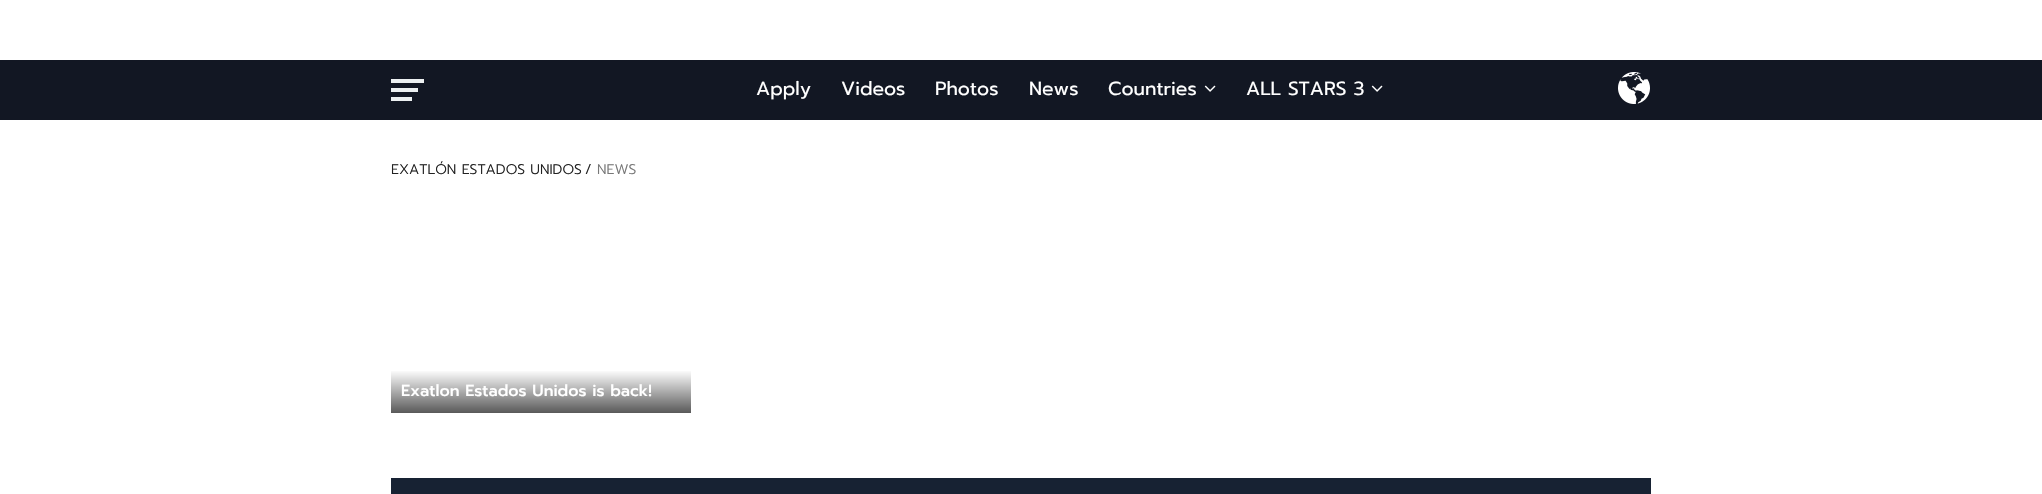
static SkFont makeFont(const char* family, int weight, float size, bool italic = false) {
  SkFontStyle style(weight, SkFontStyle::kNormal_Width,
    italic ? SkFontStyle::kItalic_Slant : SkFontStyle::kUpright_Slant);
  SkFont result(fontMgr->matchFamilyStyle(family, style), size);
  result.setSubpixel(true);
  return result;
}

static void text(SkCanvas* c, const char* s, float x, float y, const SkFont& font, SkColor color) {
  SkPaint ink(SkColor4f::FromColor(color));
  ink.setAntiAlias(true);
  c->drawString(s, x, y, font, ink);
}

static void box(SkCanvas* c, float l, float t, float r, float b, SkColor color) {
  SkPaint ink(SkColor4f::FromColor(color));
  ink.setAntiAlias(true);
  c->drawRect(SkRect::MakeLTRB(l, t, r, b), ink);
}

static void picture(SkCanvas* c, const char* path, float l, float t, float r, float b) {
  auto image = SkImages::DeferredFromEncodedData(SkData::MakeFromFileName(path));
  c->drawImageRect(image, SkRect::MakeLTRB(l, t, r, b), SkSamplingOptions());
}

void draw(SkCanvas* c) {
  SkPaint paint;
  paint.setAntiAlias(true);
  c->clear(0xffffffff);
  box(c, 0, 60, 2042, 120, 0xff121723);
  box(c, 391, 79, 424, 83, 0xffecf0f1);
  box(c, 391, 88, 418, 92, 0xffecf0f1);
  box(c, 391, 97, 412, 101, 0xffecf0f1);
  SkFont face1 = makeFont("Prompt", 400, 19);
  text(c, "Apply", 756, 95, face1, 0xffffffff);
  text(c, "Videos", 841, 95, face1, 0xffffffff);
  text(c, "Photos", 935, 95, face1, 0xffffffff);
  text(c, "News", 1029, 95, face1, 0xffffffff);
  text(c, "Countries", 1108, 95, face1, 0xffffffff);
  picture(c, "img_01.png", 1204, 85, 1216, 92);
  text(c, "ALL STARS 3", 1246, 95, face1, 0xffffffff);
  picture(c, "img_01.png", 1371, 85, 1383, 92);
  picture(c, "img_02.png", 1618, 72, 1650, 104);
  SkFont face2 = makeFont("Prompt", 300, 14);
  text(c, "EXATLÓN ESTADOS UNIDOS", 391, 174, face2, 0xff222222);
  text(c, "/", 585, 174, face2, 0xff222222);
  text(c, "NEWS", 597, 174, face2, 0xff777777);
  {
    const SkColor colors[] = {0xff595959, 0xffffffff};
    const float stops[] = {0, 1};
    const SkPoint ends[] = {{541, 413}, {541, 370}};
    paint.setShader(SkGradientShader::MakeLinear(ends, colors, stops, 2, SkTileMode::kClamp));
    paint.setAlpha(255);
  }
  c->drawRect(SkRect::MakeLTRB(391, 371, 691, 413), paint);
  SkFont face3 = makeFont("Prompt", 500, 16);
  text(c, "Exatlon Estados Unidos is back!", 401, 396, face3, 0xffffffff);
  box(c, 391, 478, 1651, 494, 0xff172233);
}
